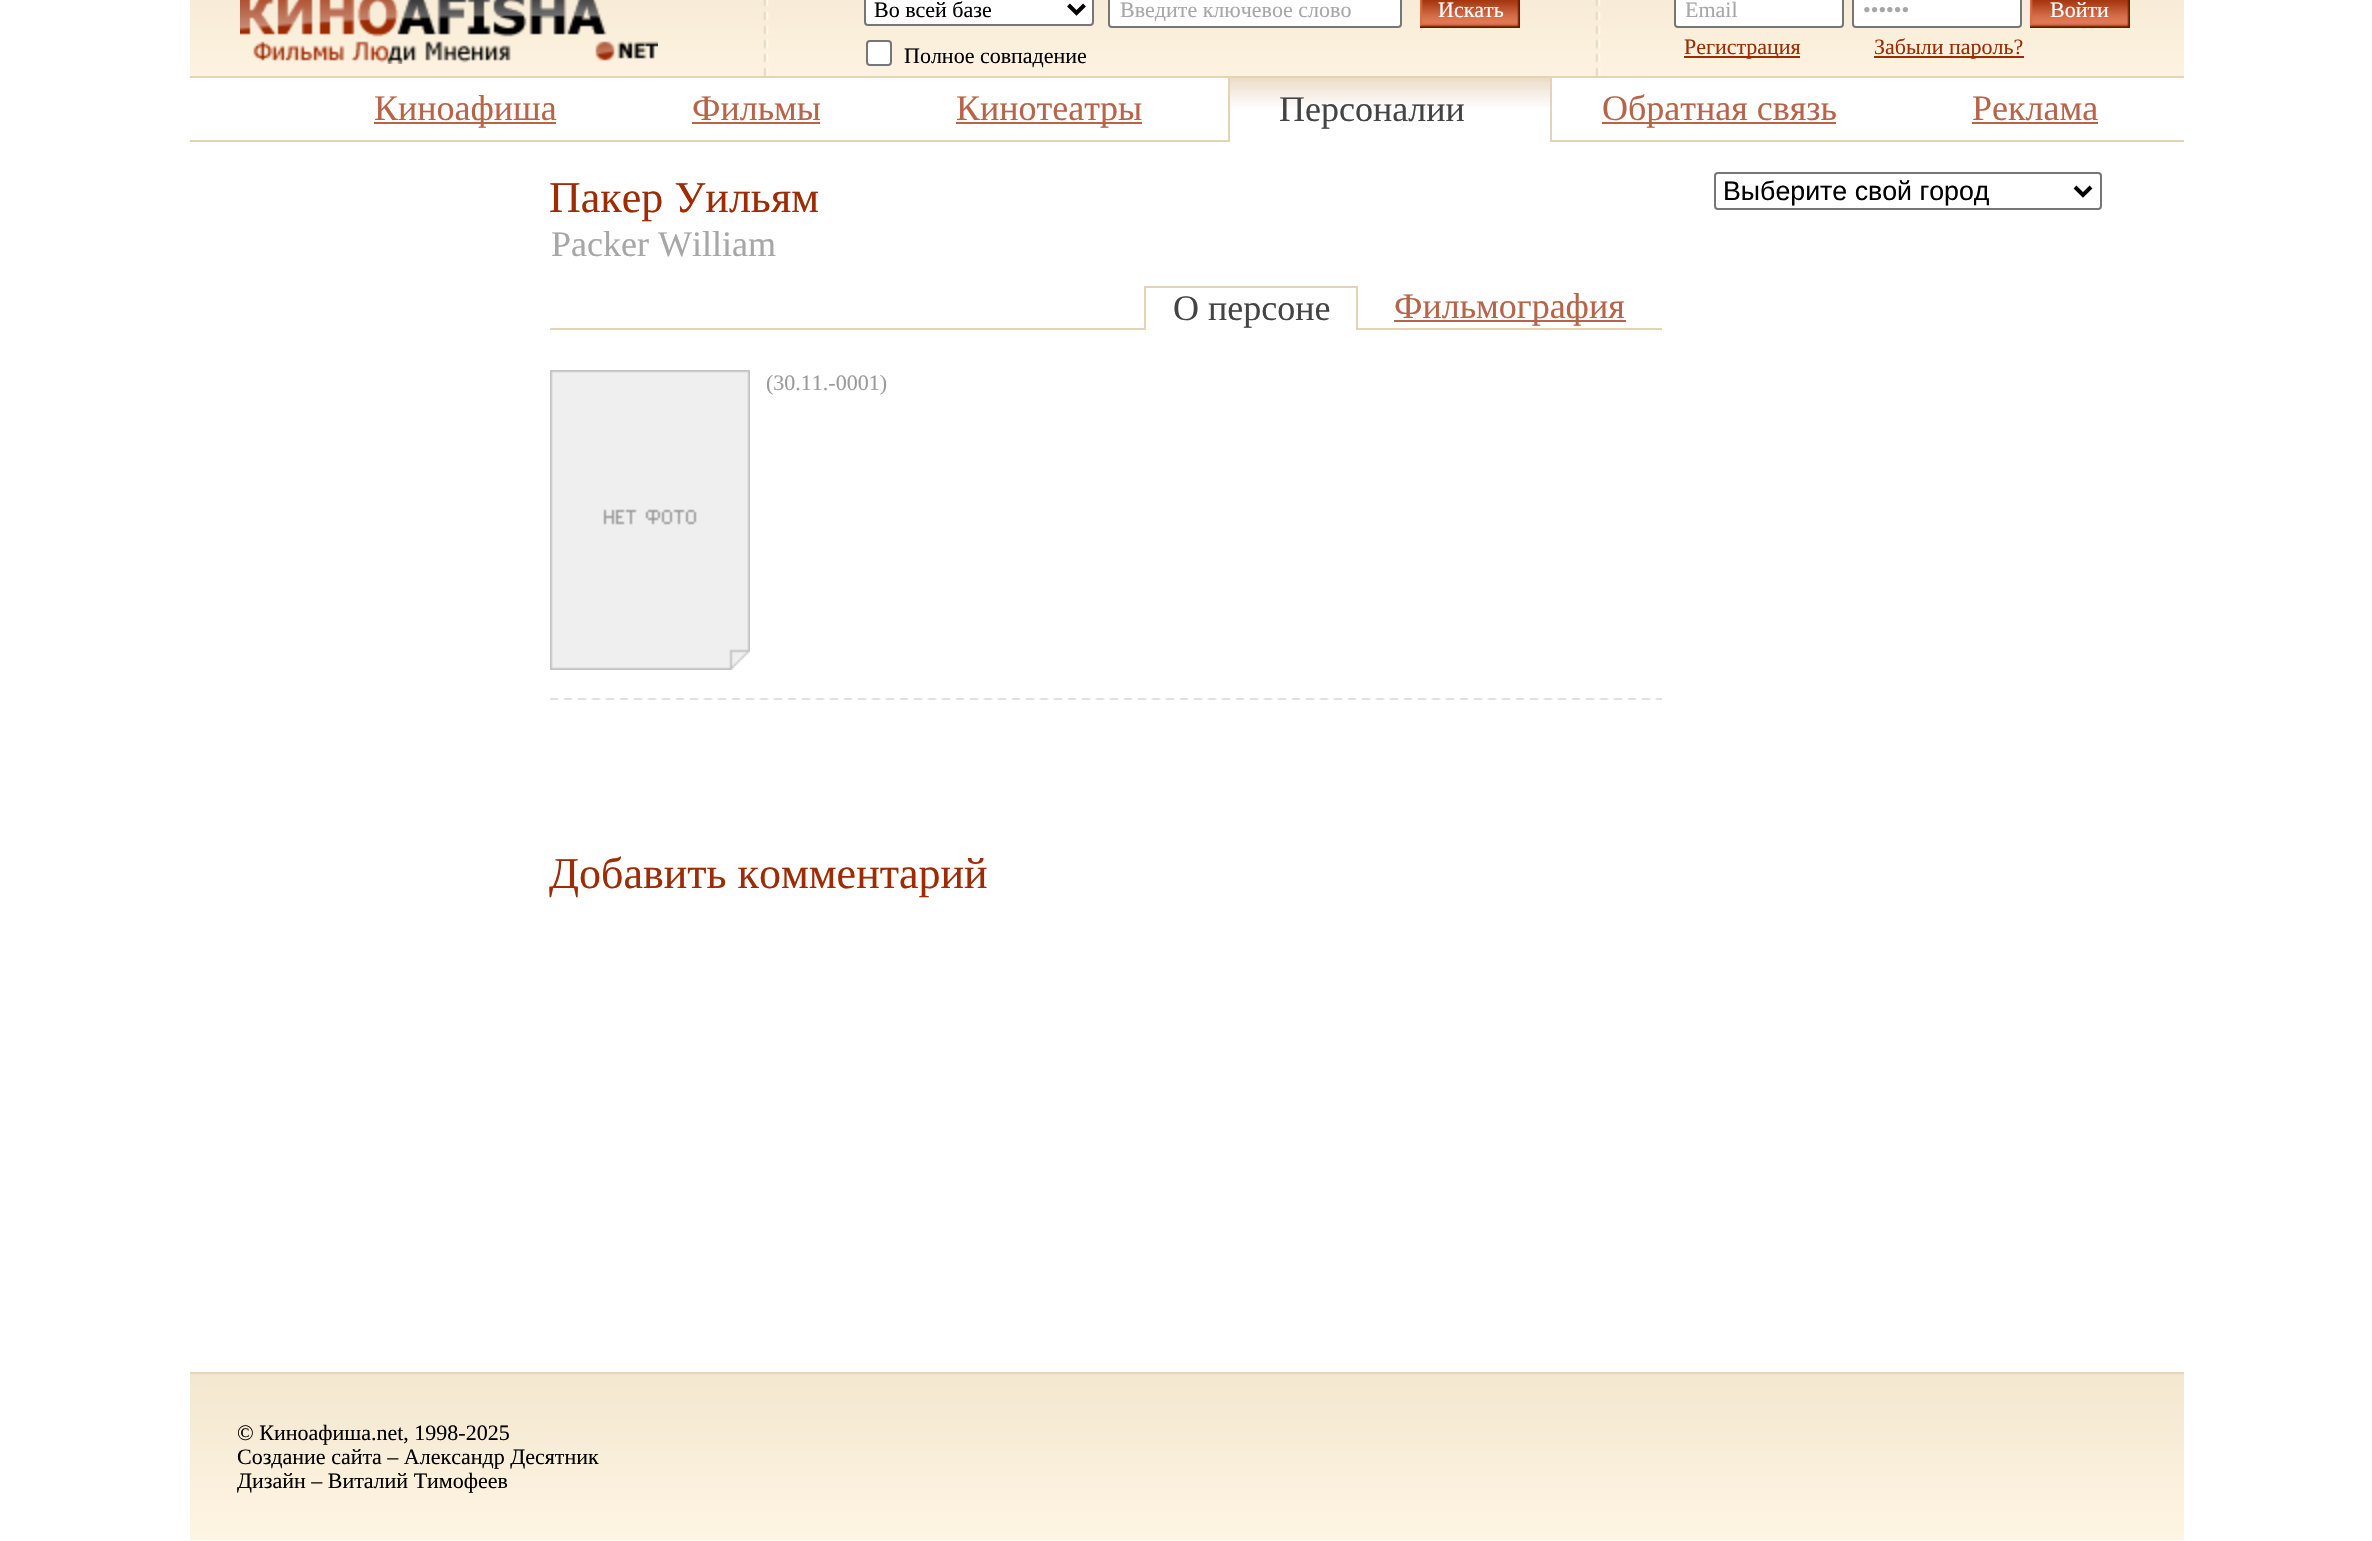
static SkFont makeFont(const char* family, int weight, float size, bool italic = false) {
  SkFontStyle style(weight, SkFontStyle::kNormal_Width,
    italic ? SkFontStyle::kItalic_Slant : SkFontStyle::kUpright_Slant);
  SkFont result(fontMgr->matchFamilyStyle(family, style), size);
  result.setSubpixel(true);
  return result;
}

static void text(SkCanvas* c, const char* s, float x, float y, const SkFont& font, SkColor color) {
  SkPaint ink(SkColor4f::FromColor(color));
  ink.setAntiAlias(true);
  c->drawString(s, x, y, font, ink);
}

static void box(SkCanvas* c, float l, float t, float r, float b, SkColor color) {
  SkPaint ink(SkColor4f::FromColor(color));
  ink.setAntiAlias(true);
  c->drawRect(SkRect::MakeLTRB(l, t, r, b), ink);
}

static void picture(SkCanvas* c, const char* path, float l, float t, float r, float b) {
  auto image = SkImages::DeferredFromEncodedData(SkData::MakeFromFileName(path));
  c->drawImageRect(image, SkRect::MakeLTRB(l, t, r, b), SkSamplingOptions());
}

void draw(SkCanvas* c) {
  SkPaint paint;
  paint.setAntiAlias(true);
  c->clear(0xffffffff);
  picture(c, "img_01.png", 190, 0, 2184, 76);
  picture(c, "img_02.png", 240, 0, 658, 64);
  picture(c, "img_03.png", 763, 0, 769, 76);
  paint.setColor(0xffffffff);
  c->drawRoundRect(SkRect::MakeLTRB(865, -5, 1093, 25), 3, 3, paint);
  paint.setStyle(SkPaint::kStroke_Style);
  paint.setStrokeWidth(2);
  paint.setColor(0xff767676);
  c->drawRoundRect(SkRect::MakeLTRB(865, -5, 1093, 25), 3, 3, paint);
  paint.setStrokeWidth(4);
  paint.setColor(0xff000000);
  c->drawPath(SkPathBuilder().moveTo(1068.5f, 5).lineTo(1076.5f, 13).lineTo(1084.5f, 5).detach(), paint);
  SkFont face1 = makeFont("Liberation Serif", 400, 22);
  text(c, "Во всей базе", 874, 17, face1, 0xff000000);
  paint.setStyle(SkPaint::kFill_Style);
  paint.setColor(0xffffffff);
  c->drawRoundRect(SkRect::MakeLTRB(1109, -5, 1401, 27), 3, 3, paint);
  paint.setStyle(SkPaint::kStroke_Style);
  paint.setStrokeWidth(2);
  paint.setColor(0xff767676);
  c->drawRoundRect(SkRect::MakeLTRB(1109, -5, 1401, 27), 3, 3, paint);
  text(c, "Введите ключевое слово", 1120, 17, face1, 0xffa7a7a7);
  picture(c, "img_04.png", 1420, 0, 1520, 28);
  text(c, "Искать", 1438, 17, face1, 0xffffffff);
  paint.setStyle(SkPaint::kFill_Style);
  paint.setColor(0xffffffff);
  c->drawRoundRect(SkRect::MakeLTRB(867, 41, 891, 65), 3, 3, paint);
  paint.setStyle(SkPaint::kStroke_Style);
  paint.setColor(0xff767676);
  c->drawRoundRect(SkRect::MakeLTRB(867, 41, 891, 65), 3, 3, paint);
  text(c, "Полное совпадение", 904, 63, face1, 0xff000000);
  picture(c, "img_03.png", 1595, 0, 1601, 76);
  paint.setStyle(SkPaint::kFill_Style);
  paint.setColor(0xffffffff);
  c->drawRoundRect(SkRect::MakeLTRB(1675, -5, 1843, 27), 3, 3, paint);
  paint.setStyle(SkPaint::kStroke_Style);
  paint.setColor(0xff767676);
  c->drawRoundRect(SkRect::MakeLTRB(1675, -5, 1843, 27), 3, 3, paint);
  c->save();
  c->clipRect(SkRect::MakeLTRB(1686, 0, 1836, 22));
  text(c, "Email", 1685, 17, face1, 0xffa7a7a7);
  c->restore();
  paint.setStyle(SkPaint::kFill_Style);
  paint.setColor(0xffffffff);
  c->drawRoundRect(SkRect::MakeLTRB(1853, -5, 2021, 27), 3, 3, paint);
  paint.setStyle(SkPaint::kStroke_Style);
  paint.setColor(0xff767676);
  c->drawRoundRect(SkRect::MakeLTRB(1853, -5, 2021, 27), 3, 3, paint);
  text(c, "••••••", 1863, 17, face1, 0xffa7a7a7);
  picture(c, "img_04.png", 2030, 0, 2130, 28);
  text(c, "Войти", 2050, 17, face1, 0xffffffff);
  box(c, 1684, 56, 1800, 58, 0xff9d2c05);
  text(c, "Регистрация", 1684, 54, face1, 0xff9d2c05);
  box(c, 1874, 56, 2024, 58, 0xff9d2c05);
  text(c, "Забыли пароль?", 1874, 54, face1, 0xff9d2c05);
  box(c, 190, 76, 2184, 78, 0xffe4d4b5);
  box(c, 190, 140, 1228, 142, 0xffe4d4b5);
  box(c, 374, 122, 556, 124, 0xffb76448);
  SkFont face2 = makeFont("Liberation Serif", 400, 36);
  text(c, "Киноафиша", 374, 120, face2, 0xffb76448);
  text(c, "Фильмы", 692, 120, face2, 0xffb76448);
  box(c, 692, 122, 820, 124, 0xffb76448);
  box(c, 956, 122, 1142, 124, 0xffb76448);
  text(c, "Кинотеатры", 956, 120, face2, 0xffb76448);
  picture(c, "img_05.png", 1230, 78, 1550, 108);
  box(c, 1550, 76, 1552, 142, 0xffe4d4b5);
  box(c, 1228, 76, 1230, 142, 0xffe4d4b5);
  text(c, "Персоналии", 1279, 121, face2, 0xff444444);
  box(c, 1552, 140, 2184, 142, 0xffe4d4b5);
  box(c, 1602, 122, 1836, 124, 0xffb76448);
  text(c, "Обратная связь", 1602, 120, face2, 0xffb76448);
  text(c, "Реклама", 1972, 120, face2, 0xffb76448);
  box(c, 1972, 122, 2098, 124, 0xffb76448);
  SkFont face3 = makeFont("Liberation Serif", 400, 44);
  text(c, "Пакер Уильям", 549, 212, face3, 0xff9d2c05);
  text(c, "Packer William", 551, 256, face2, 0xffa7a7a7);
  box(c, 1144, 286, 1358, 288, 0xffe4d4b5);
  box(c, 1356, 286, 1358, 330, 0xffe4d4b5);
  box(c, 1144, 286, 1146, 330, 0xffe4d4b5);
  text(c, "О персоне", 1173, 320, face2, 0xff444444);
  box(c, 1358, 328, 1662, 330, 0xffe4d4b5);
  box(c, 1394, 320, 1626, 322, 0xffb76448);
  text(c, "Фильмография", 1394, 318, face2, 0xffb76448);
  box(c, 550, 328, 1144, 330, 0xffe4d4b5);
  picture(c, "img_06.png", 550, 370, 750, 670);
  text(c, "(30.11.-0001)", 766, 390, face1, 0xff9a9a9a);
  picture(c, "img_07.png", 550, 698, 1662, 700);
  text(c, "Добавить комментарий", 549, 888, face3, 0xff9d2c05);
  c->drawRoundRect(SkRect::MakeLTRB(1715, 173, 2101, 209), 3, 3, paint);
  paint.setStrokeWidth(4);
  paint.setColor(0xff000000);
  c->drawPath(SkPathBuilder().moveTo(2075, 187).lineTo(2083, 195).lineTo(2091, 187).detach(), paint);
  SkFont face4 = makeFont("Liberation Sans", 400, 26.75f);
  text(c, "Выберите свой город", 1723, 200, face4, 0xff000000);
  picture(c, "img_08.png", 190, 1372, 2184, 1540);
  text(c, "© Киноафиша.net, 1998-2025", 237, 1440, face1, 0xff000000);
  text(c, "Создание сайта – Александр Десятник", 237, 1464, face1, 0xff000000);
  text(c, "Дизайн – Виталий Тимофеев", 237, 1488, face1, 0xff000000);
}
